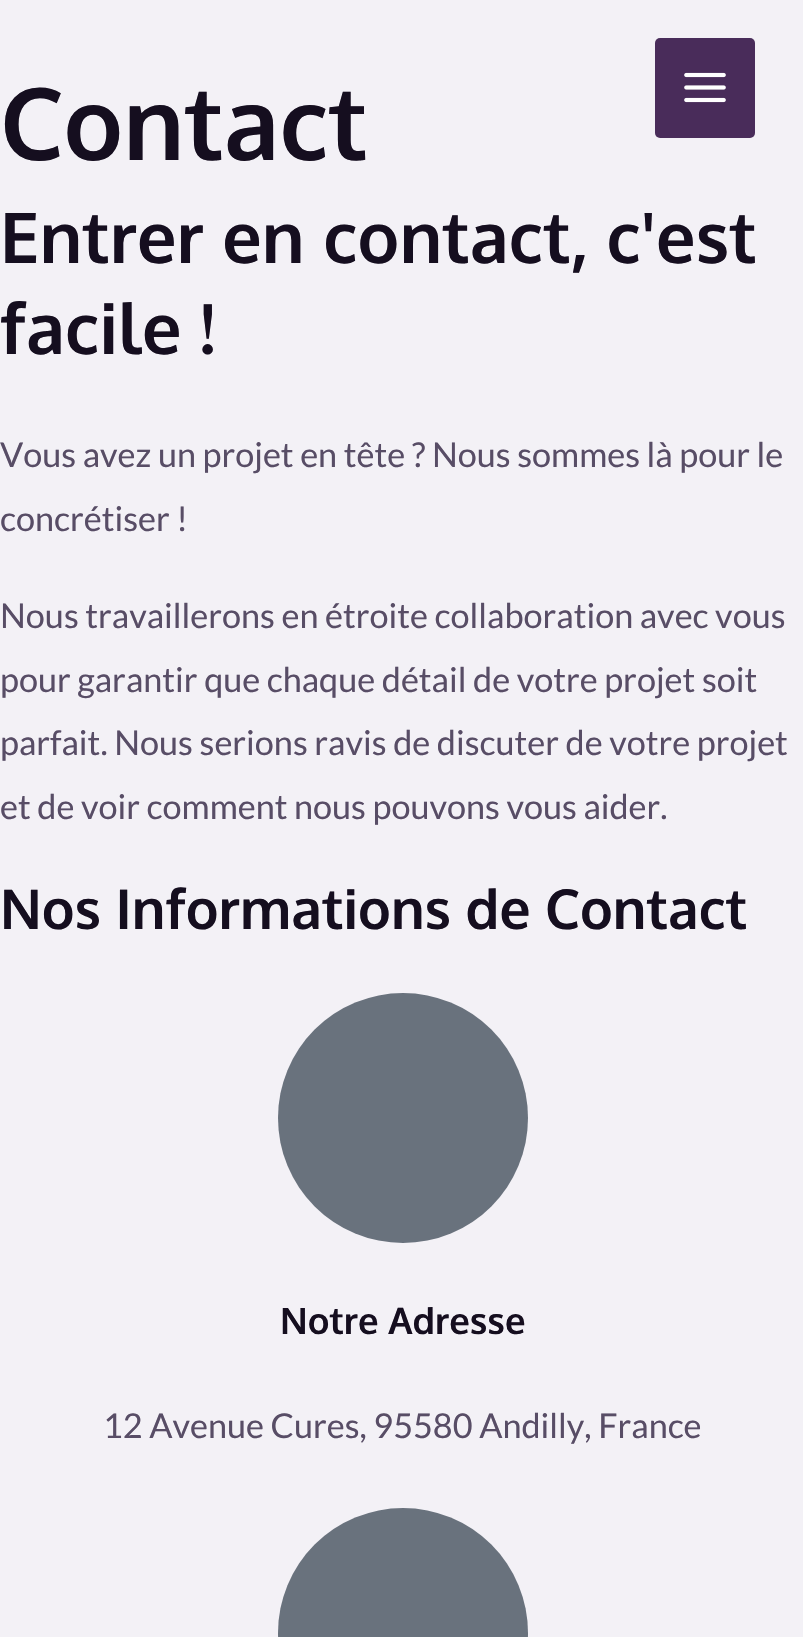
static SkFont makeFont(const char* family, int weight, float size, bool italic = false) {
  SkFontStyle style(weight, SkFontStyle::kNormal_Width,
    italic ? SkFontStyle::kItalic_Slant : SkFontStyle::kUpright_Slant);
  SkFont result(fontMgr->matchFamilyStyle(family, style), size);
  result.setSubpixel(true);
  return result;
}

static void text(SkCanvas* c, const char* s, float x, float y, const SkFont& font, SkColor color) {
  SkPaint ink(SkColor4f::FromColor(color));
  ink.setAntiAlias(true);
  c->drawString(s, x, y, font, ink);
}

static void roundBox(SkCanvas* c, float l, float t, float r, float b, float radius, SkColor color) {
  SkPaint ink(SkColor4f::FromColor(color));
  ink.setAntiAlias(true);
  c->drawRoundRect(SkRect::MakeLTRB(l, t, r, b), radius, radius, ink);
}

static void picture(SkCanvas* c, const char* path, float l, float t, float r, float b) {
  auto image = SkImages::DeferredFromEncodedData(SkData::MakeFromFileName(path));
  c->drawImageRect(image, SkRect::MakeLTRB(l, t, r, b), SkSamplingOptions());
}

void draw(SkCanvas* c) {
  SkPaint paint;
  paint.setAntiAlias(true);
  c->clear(0xfff3f1f6);
  roundBox(c, 655, 38, 755, 138, 5, 0xff492c5a);
  picture(c, "img_01.png", 684, 72, 726, 103);
  SkFont face1 = makeFont("Oxygen", 700, 100);
  text(c, "Contact", 0, 160, face1, 0xff150e1f);
  SkFont face2 = makeFont("Oxygen", 700, 70);
  text(c, "Entrer en contact, c'est", 0, 263, face2, 0xff150e1f);
  text(c, "facile !", 0, 354, face2, 0xff150e1f);
  SkFont face3 = makeFont("Lato", 400, 34.2f);
  text(c, "Vous avez un projet en tête ? Nous sommes là pour le", 0, 467, face3, 0xff584d66);
  text(c, "concrétiser !", 0, 531, face3, 0xff584d66);
  text(c, "Nous travaillerons en étroite collaboration avec vous", 0, 628, face3, 0xff584d66);
  text(c, "pour garantir que chaque détail de votre projet soit", 0, 692, face3, 0xff584d66);
  text(c, "parfait. Nous serions ravis de discuter de votre projet", 0, 755, face3, 0xff584d66);
  text(c, "et de voir comment nous pouvons vous aider.", 0, 819, face3, 0xff584d66);
  SkFont face4 = makeFont("Oxygen", 700, 55);
  text(c, "Nos Informations de Contact", 0, 929, face4, 0xff150e1f);
  paint.setColor(0xff69727d);
  c->drawCircle(403, 1118, 125, paint);
  SkFont face5 = makeFont("Oxygen", 700, 36.5f);
  text(c, "Notre Adresse", 280, 1334, face5, 0xff150e1f);
  text(c, "12 Avenue Cures, 95580 Andilly, France", 103, 1438, face3, 0xff584d66);
  c->drawCircle(403, 1633, 125, paint);
}
